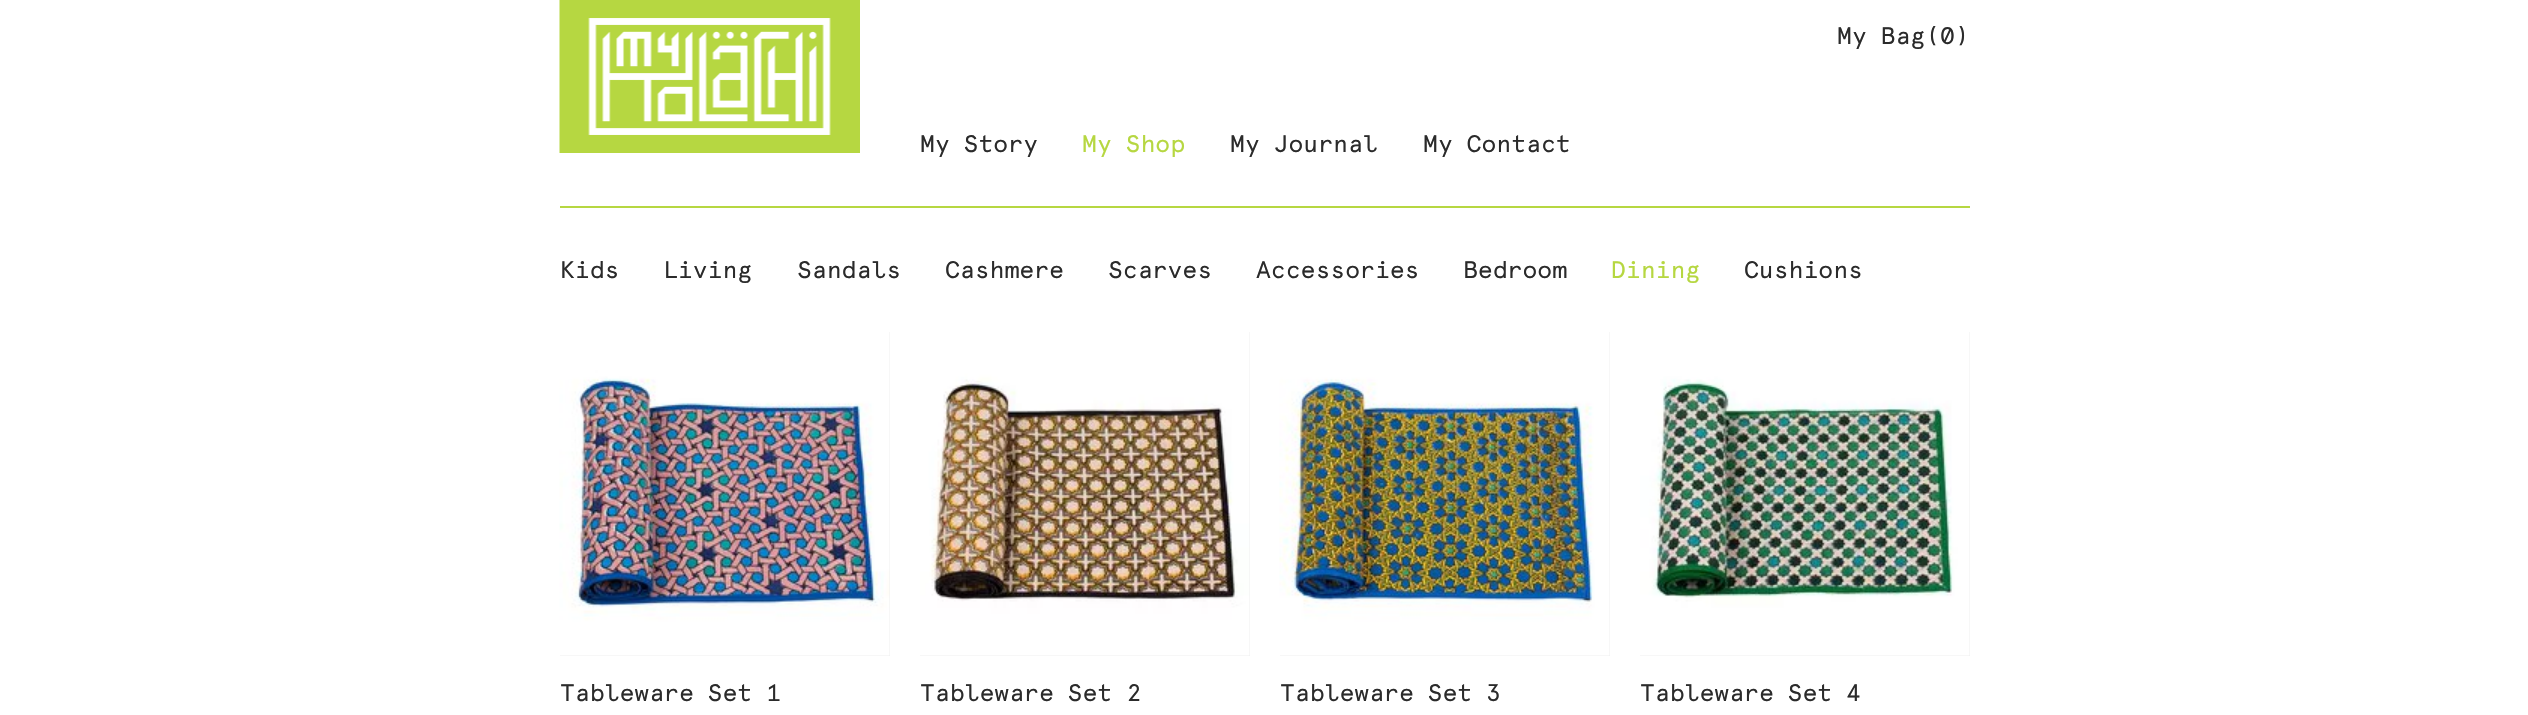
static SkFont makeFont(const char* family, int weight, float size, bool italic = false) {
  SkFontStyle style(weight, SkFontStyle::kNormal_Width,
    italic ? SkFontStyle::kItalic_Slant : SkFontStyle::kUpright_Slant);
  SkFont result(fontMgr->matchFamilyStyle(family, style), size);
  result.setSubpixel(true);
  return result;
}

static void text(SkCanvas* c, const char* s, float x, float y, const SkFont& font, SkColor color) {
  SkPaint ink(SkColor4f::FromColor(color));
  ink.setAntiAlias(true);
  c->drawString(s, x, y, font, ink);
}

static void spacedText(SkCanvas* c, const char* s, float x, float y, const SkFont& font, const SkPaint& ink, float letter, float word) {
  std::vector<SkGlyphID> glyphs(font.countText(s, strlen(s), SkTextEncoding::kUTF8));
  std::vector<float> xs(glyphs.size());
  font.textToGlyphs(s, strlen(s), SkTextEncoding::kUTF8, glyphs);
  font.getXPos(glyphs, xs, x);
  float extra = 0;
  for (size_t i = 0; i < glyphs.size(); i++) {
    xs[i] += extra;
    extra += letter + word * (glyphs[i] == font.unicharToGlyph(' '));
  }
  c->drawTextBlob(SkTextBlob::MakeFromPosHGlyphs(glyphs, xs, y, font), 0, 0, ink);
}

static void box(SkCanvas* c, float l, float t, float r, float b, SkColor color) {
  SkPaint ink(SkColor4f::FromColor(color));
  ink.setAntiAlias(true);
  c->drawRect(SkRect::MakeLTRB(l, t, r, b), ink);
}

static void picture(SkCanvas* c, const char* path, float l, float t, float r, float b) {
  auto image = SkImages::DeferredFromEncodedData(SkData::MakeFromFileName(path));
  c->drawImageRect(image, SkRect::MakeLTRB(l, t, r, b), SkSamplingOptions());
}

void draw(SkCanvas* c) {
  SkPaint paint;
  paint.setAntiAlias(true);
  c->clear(0xffffffff);
  box(c, 831, 0, 860, 153, 0xffb6d741);
  picture(c, "img_01.png", 559, 0, 831, 153);
  SkFont face1 = makeFont("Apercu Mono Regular", 400, 24);
  paint.setColor(0xff2b2b2b);
  spacedText(c, "My Bag(", 1837, 44, face1, paint, 0, -1);
  text(c, "0)", 1940, 44, face1, 0xff2b2b2b);
  spacedText(c, "My Story", 920, 152, face1, paint, 0, -1);
  paint.setColor(0xffb6d741);
  spacedText(c, "My Shop", 1082, 152, face1, paint, 0, -1);
  paint.setColor(0xff2b2b2b);
  spacedText(c, "My Journal", 1230, 152, face1, paint, 0, -1);
  spacedText(c, "My Contact", 1423, 152, face1, paint, 0, -1);
  box(c, 560, 206, 1970, 208, 0xffb6d741);
  text(c, "Kids", 560, 278, face1, 0xff2b2b2b);
  text(c, "Living", 663, 278, face1, 0xff2b2b2b);
  text(c, "Sandals", 797, 278, face1, 0xff2b2b2b);
  text(c, "Cashmere", 945, 278, face1, 0xff2b2b2b);
  text(c, "Scarves", 1108, 278, face1, 0xff2b2b2b);
  text(c, "Accessories", 1256, 278, face1, 0xff2b2b2b);
  text(c, "Bedroom", 1463, 278, face1, 0xff2b2b2b);
  text(c, "Dining", 1611, 278, face1, 0xffb6d741);
  text(c, "Cushions", 1744, 278, face1, 0xff2b2b2b);
  box(c, 560, 332, 890, 656, 0xffeeeeee);
  picture(c, "img_02.png", 559, 332, 890, 656);
  spacedText(c, "Tableware Set 1", 560, 701, face1, paint, 0, -1);
  box(c, 920, 332, 1250, 656, 0xffeeeeee);
  picture(c, "img_03.png", 920, 332, 1250, 656);
  spacedText(c, "Tableware Set 2", 920, 701, face1, paint, 0, -1);
  box(c, 1280, 332, 1610, 656, 0xffeeeeee);
  picture(c, "img_04.png", 1279, 332, 1610, 656);
  spacedText(c, "Tableware Set 3", 1280, 701, face1, paint, 0, -1);
  box(c, 1640, 332, 1970, 656, 0xffeeeeee);
  picture(c, "img_05.png", 1640, 332, 1970, 656);
  spacedText(c, "Tableware Set 4", 1640, 701, face1, paint, 0, -1);
}
